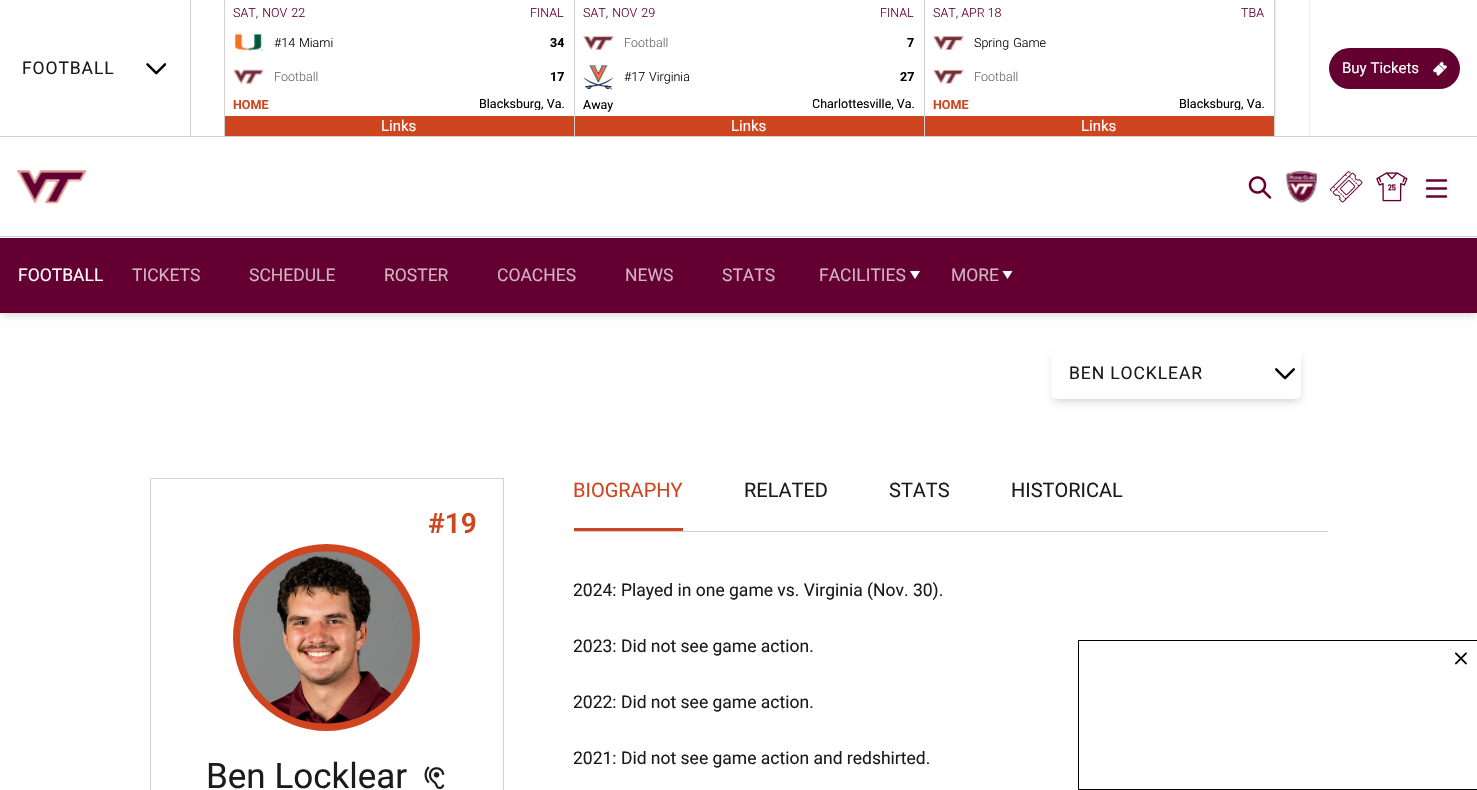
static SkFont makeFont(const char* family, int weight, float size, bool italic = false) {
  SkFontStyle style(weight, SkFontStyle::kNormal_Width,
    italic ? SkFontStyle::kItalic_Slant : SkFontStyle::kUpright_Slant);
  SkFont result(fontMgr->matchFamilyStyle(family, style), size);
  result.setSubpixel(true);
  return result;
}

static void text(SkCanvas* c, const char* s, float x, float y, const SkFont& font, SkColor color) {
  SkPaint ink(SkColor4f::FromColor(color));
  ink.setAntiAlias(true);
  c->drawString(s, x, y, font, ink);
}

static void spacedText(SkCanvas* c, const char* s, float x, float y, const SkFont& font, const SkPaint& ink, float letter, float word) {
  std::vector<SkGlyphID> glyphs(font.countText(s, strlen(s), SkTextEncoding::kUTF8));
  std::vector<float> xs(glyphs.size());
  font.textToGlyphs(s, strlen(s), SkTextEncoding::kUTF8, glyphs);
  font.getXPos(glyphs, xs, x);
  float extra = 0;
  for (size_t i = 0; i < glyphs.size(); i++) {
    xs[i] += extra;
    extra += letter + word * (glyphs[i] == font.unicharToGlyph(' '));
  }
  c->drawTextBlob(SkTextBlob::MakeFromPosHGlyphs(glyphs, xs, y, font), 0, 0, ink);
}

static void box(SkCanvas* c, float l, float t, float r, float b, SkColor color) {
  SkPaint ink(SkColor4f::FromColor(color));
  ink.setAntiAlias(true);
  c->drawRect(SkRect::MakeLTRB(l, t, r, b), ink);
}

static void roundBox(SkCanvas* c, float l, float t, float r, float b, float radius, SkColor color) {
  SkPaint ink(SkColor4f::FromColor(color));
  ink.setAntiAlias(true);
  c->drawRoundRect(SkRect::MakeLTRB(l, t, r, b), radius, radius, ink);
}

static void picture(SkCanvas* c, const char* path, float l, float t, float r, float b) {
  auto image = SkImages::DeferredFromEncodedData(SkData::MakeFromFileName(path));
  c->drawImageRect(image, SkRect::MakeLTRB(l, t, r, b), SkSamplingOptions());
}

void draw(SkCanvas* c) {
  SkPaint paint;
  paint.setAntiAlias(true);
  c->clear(0xffffffff);
  box(c, 0, 136, 1477, 137, 0xffd1d1d1);
  picture(c, "img_01.png", 146, 63, 166, 75);
  SkFont face1 = makeFont("Roboto", 400, 17.5f);
  paint.setColor(0xff1c1a1a);
  spacedText(c, "FOOTBALL", 22, 74, face1, paint, 0.9f, 0);
  box(c, 224, 0, 225, 136, 0xffd1d1d1);
  box(c, 190, 0, 191, 136, 0xffd1d1d1);
  box(c, 574, 0, 575, 136, 0xffd1d1d1);
  SkFont face2 = makeFont("Roboto", 300, 12.5f);
  paint.setColor(0xff640031);
  spacedText(c, "SAT, NOV 22", 233, 17, face2, paint, 0, 1);
  text(c, "FINAL", 530, 17, face2, 0xff640031);
  picture(c, "img_02.png", 234, 33, 264, 51);
  text(c, "#14", 274, 47, face2, 0xff000000);
  text(c, "Miami", 299, 47, face2, 0xff000000);
  SkFont face3 = makeFont("Roboto", 700, 12.5f);
  text(c, "34", 550, 47, face3, 0xff000000);
  picture(c, "img_03.png", 233, 69, 264, 85);
  text(c, "Football", 274, 81, face2, 0xff666666);
  text(c, "17", 550, 81, face3, 0xff000000);
  text(c, "HOME", 233, 109, face3, 0xffcf4520);
  c->save();
  c->clipRect(SkRect::MakeLTRB(479, 98, 565, 110));
  SkFont face4 = makeFont("Roboto", 400, 12.5f);
  text(c, "Blacksburg, Va.", 479, 108, face4, 0xff000000);
  c->restore();
  box(c, 225, 116, 574, 136, 0xffcf4520);
  SkFont face5 = makeFont("Roboto", 400, 15);
  text(c, "Links", 381, 131, face5, 0xffffffff);
  box(c, 924, 0, 925, 136, 0xffd1d1d1);
  spacedText(c, "SAT, NOV 29", 583, 17, face2, paint, 0, 1);
  text(c, "FINAL", 880, 17, face2, 0xff640031);
  picture(c, "img_04.png", 583, 36, 614, 50);
  text(c, "Football", 624, 47, face2, 0xff666666);
  text(c, "7", 907, 47, face3, 0xff000000);
  picture(c, "img_05.png", 583, 65, 614, 90);
  text(c, "#17", 624, 81, face2, 0xff000000);
  text(c, "Virginia", 649, 81, face2, 0xff000000);
  text(c, "27", 900, 81, face3, 0xff000000);
  text(c, "Away", 583, 109, face4, 0xff000000);
  c->save();
  c->clipRect(SkRect::MakeLTRB(813, 98, 915, 110));
  text(c, "Charlottesville, Va.", 812, 108, face4, 0xff000000);
  c->restore();
  box(c, 575, 116, 924, 136, 0xffcf4520);
  text(c, "Links", 731, 131, face5, 0xffffffff);
  box(c, 1274, 0, 1275, 136, 0xffd1d1d1);
  text(c, "SAT, APR 18", 933, 17, face2, 0xff640031);
  text(c, "TBA", 1241, 17, face2, 0xff640031);
  picture(c, "img_06.png", 933, 36, 964, 50);
  paint.setColor(0xff000000);
  spacedText(c, "Spring Game", 974, 47, face2, paint, 0, 1);
  picture(c, "img_07.png", 933, 70, 964, 84);
  text(c, "Football", 974, 81, face2, 0xff666666);
  text(c, "HOME", 933, 109, face3, 0xffcf4520);
  c->save();
  c->clipRect(SkRect::MakeLTRB(1179, 98, 1265, 110));
  text(c, "Blacksburg, Va.", 1179, 108, face4, 0xff000000);
  c->restore();
  box(c, 925, 116, 1274, 136, 0xffcf4520);
  text(c, "Links", 1081, 131, face5, 0xffffffff);
  box(c, 1309, 0, 1310, 136, 0xffefefef);
  box(c, 1275, 0, 1276, 136, 0xffefefef);
  roundBox(c, 1329, 48, 1460, 89, 20.5f, 0xff640031);
  text(c, "Buy Tickets", 1342, 73, face5, 0xffffffff);
  picture(c, "img_08.png", 1433, 61, 1447, 76);
  paint.setColor(0x1a000000);
  paint.setMaskFilter(SkMaskFilter::MakeBlur(kNormal_SkBlurStyle, 2.5f));
  c->drawRect(SkRect::MakeLTRB(3, 243, 1475, 313), paint);
  paint.setMaskFilter(nullptr);
  paint.setMaskFilter(SkMaskFilter::MakeBlur(kNormal_SkBlurStyle, 4));
  c->drawRect(SkRect::MakeLTRB(1, 244, 1476, 316), paint);
  paint.setMaskFilter(nullptr);
  box(c, 0, 236, 1477, 237, 0xffd1d1d1);
  picture(c, "img_09.png", 17, 170, 87, 204);
  picture(c, "img_10.png", 1248, 176, 1272, 199);
  picture(c, "img_11.png", 1286, 170, 1317, 203);
  picture(c, "img_12.png", 1330, 171, 1363, 203);
  picture(c, "img_13.png", 1376, 172, 1408, 202);
  paint.setStyle(SkPaint::kStroke_Style);
  paint.setStrokeWidth(2.4f);
  paint.setStrokeCap(SkPaint::kRound_Cap);
  paint.setColor(0xff640031);
  c->drawPath(SkPathBuilder().moveTo(1427, 180.5f).lineTo(1446, 180.5f).moveTo(1427, 188.5f).lineTo(1446, 188.5f).moveTo(1446, 196.5f).lineTo(1427, 196.5f).detach(), paint);
  box(c, 0, 238, 1477, 313, 0xff640031);
  text(c, "FOOTBALL", 18, 281, face1, 0xffffffff);
  text(c, "TICKETS", 132, 281, face1, 0xffd1b3c1);
  text(c, "SCHEDULE", 249, 281, face1, 0xffd1b3c1);
  text(c, "ROSTER", 384, 281, face1, 0xffd1b3c1);
  text(c, "COACHES", 497, 281, face1, 0xffd1b3c1);
  text(c, "NEWS", 625, 281, face1, 0xffd1b3c1);
  text(c, "STATS", 722, 281, face1, 0xffd1b3c1);
  text(c, "FACILITIES", 819, 281, face1, 0xffd1b3c1);
  paint.setStyle(SkPaint::kFill_Style);
  paint.setColor(0xffffffff);
  c->drawPath(SkPathBuilder().moveTo(910, 271).lineTo(920, 271).lineTo(915, 279).close().detach(), paint);
  text(c, "MORE", 951, 281, face1, 0xffd1b3c1);
  c->drawPath(SkPathBuilder().moveTo(1002.5f, 271).lineTo(1012.5f, 271).lineTo(1007.5f, 279).close().detach(), paint);
  paint.setColor(0x1a000000);
  paint.setMaskFilter(SkMaskFilter::MakeBlur(kNormal_SkBlurStyle, 2.5f));
  c->drawRoundRect(SkRect::MakeLTRB(1054, 354, 1299, 399), 4, 4, paint);
  paint.setMaskFilter(nullptr);
  paint.setMaskFilter(SkMaskFilter::MakeBlur(kNormal_SkBlurStyle, 4));
  c->drawRoundRect(SkRect::MakeLTRB(1053, 355, 1300, 403), 5, 5, paint);
  paint.setMaskFilter(nullptr);
  roundBox(c, 1051, 349, 1301, 399, 6, 0xffffffff);
  picture(c, "img_14.png", 1275, 368, 1295, 380);
  paint.setColor(0xff1c1a1a);
  spacedText(c, "BEN LOCKLEAR", 1069, 379, face1, paint, 0.9f, 0);
  paint.setStyle(SkPaint::kStroke_Style);
  paint.setStrokeWidth(1);
  paint.setStrokeCap(SkPaint::kButt_Cap);
  paint.setColor(0xffd2d1d1);
  c->drawRect(SkRect::MakeLTRB(150.5f, 478.5f, 503.5f, 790.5f), paint);
  SkFont face6 = makeFont("Roboto", 600, 28);
  text(c, "#19", 428, 533, face6, 0xffcf4520);
  paint.setStrokeWidth(8);
  paint.setColor(0xffcf4520);
  c->drawCircle(326.5f, 637.5f, 89.5f, paint);
  picture(c, "img_15.png", 240, 551, 413, 724);
  SkFont face7 = makeFont("Roboto", 400, 35);
  text(c, "Ben Locklear", 206, 788, face7, 0xff1c1a1a);
  picture(c, "img_16.png", 424, 766, 445, 790);
  box(c, 574, 531, 1328, 532, 0xffd2d1d1);
  box(c, 574, 528, 683, 531, 0xffcf4520);
  SkFont face8 = makeFont("Roboto", 400, 20);
  text(c, "BIOGRAPHY", 573, 497, face8, 0xffcf4520);
  text(c, "RELATED", 744, 497, face8, 0xff1c1a1a);
  text(c, "STATS", 889, 497, face8, 0xff1c1a1a);
  text(c, "HISTORICAL", 1011, 497, face8, 0xff1c1a1a);
  text(c, "2024: Played in one game vs. Virginia (Nov. 30).", 573, 596, face1, 0xff1c1a1a);
  text(c, "2023: Did not see game action.", 573, 652, face1, 0xff1c1a1a);
  text(c, "2022: Did not see game action.", 573, 708, face1, 0xff1c1a1a);
  text(c, "2021: Did not see game action and redshirted.", 573, 764, face1, 0xff1c1a1a);
  paint.setStrokeWidth(1);
  paint.setColor(0xff000000);
  c->drawRect(SkRect::MakeLTRB(1078.5f, 640.5f, 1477.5f, 789.5f), paint);
  picture(c, "img_17.png", 1455, 652, 1467, 665);
}
